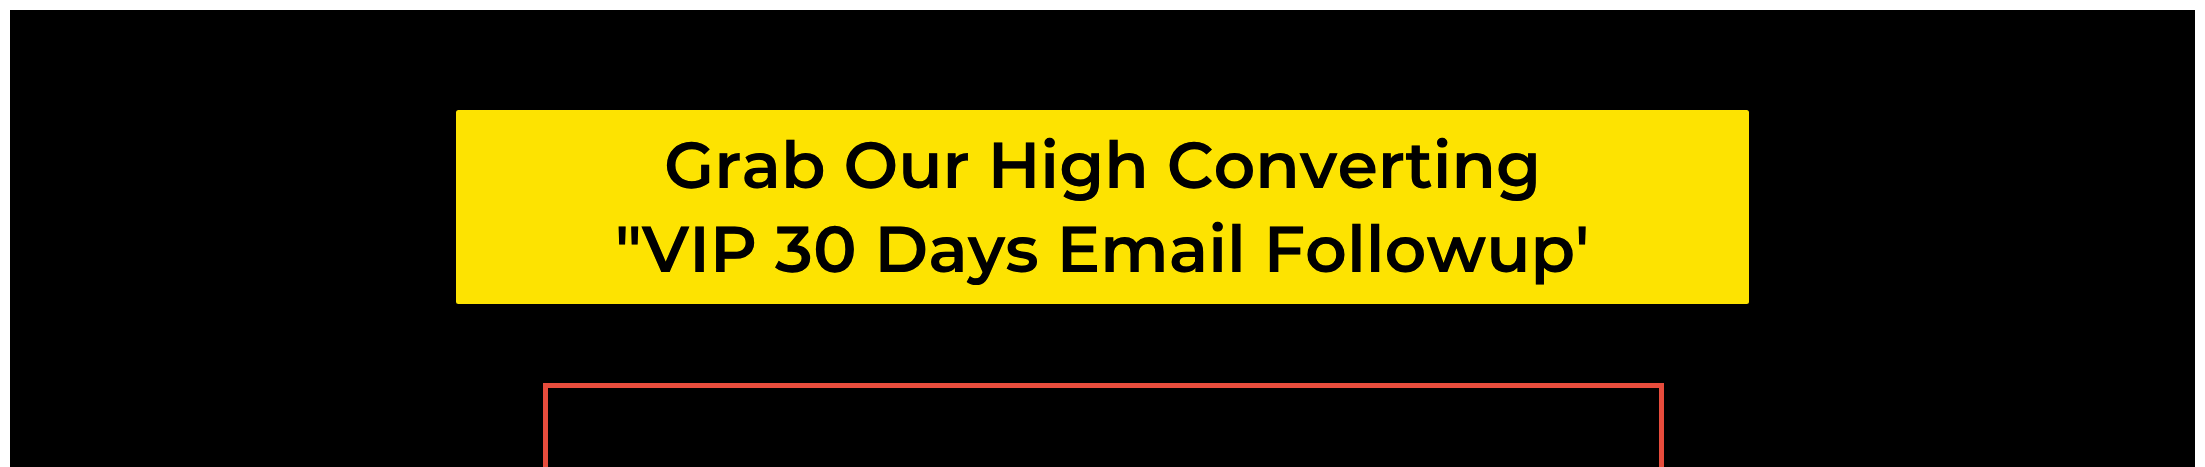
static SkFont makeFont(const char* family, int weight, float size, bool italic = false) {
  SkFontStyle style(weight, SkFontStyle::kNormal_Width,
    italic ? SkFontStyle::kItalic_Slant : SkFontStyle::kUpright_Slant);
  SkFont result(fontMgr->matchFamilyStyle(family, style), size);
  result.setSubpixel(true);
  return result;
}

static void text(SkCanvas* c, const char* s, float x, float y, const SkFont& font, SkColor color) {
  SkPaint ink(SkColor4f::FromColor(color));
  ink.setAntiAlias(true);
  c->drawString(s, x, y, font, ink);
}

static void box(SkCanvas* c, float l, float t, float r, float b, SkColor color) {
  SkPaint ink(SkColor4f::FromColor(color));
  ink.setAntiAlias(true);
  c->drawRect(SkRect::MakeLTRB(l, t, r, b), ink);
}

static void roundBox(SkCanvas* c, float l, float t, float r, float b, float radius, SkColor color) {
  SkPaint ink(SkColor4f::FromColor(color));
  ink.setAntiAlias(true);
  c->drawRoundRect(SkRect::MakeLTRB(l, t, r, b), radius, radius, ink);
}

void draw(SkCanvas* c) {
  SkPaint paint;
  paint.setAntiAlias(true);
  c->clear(0xffffffff);
  box(c, 10, 10, 2195, 467, 0xff000000);
  roundBox(c, 456, 110, 1749, 304, 2.5f, 0xfffde301);
  SkFont face1 = makeFont("Montserrat", 600, 65);
  text(c, "Grab Our High Converting", 664, 188, face1, 0xff000000);
  text(c, "\"VIP 30 Days Email Followup'", 615, 272, face1, 0xff000000);
  paint.setStyle(SkPaint::kStroke_Style);
  paint.setStrokeWidth(5);
  paint.setColor(0xffe74c3c);
  c->drawRect(SkRect::MakeLTRB(545.5f, 385.5f, 1661.5f, 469.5f), paint);
}
